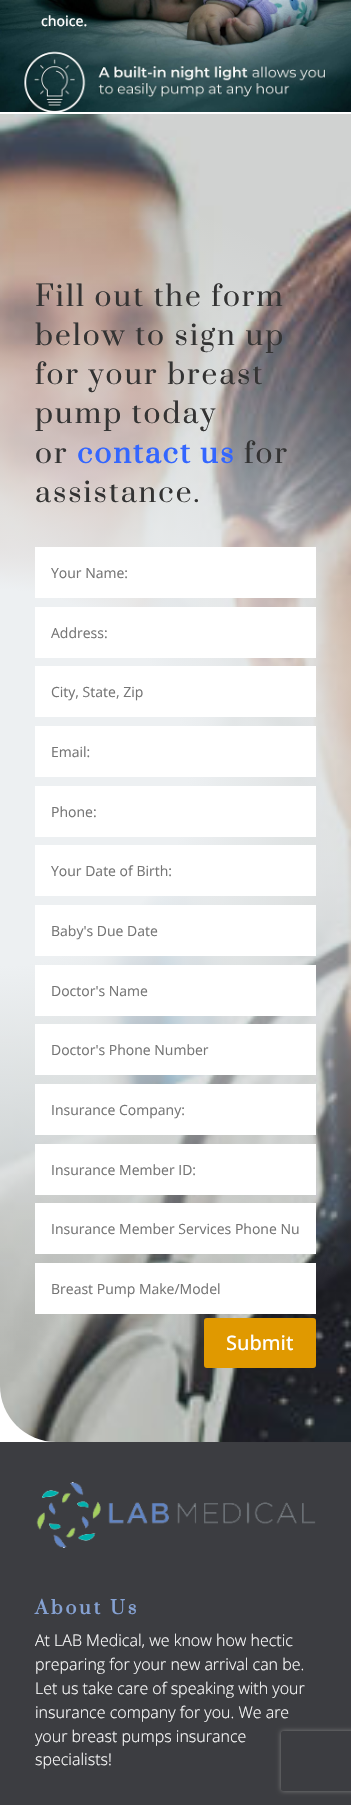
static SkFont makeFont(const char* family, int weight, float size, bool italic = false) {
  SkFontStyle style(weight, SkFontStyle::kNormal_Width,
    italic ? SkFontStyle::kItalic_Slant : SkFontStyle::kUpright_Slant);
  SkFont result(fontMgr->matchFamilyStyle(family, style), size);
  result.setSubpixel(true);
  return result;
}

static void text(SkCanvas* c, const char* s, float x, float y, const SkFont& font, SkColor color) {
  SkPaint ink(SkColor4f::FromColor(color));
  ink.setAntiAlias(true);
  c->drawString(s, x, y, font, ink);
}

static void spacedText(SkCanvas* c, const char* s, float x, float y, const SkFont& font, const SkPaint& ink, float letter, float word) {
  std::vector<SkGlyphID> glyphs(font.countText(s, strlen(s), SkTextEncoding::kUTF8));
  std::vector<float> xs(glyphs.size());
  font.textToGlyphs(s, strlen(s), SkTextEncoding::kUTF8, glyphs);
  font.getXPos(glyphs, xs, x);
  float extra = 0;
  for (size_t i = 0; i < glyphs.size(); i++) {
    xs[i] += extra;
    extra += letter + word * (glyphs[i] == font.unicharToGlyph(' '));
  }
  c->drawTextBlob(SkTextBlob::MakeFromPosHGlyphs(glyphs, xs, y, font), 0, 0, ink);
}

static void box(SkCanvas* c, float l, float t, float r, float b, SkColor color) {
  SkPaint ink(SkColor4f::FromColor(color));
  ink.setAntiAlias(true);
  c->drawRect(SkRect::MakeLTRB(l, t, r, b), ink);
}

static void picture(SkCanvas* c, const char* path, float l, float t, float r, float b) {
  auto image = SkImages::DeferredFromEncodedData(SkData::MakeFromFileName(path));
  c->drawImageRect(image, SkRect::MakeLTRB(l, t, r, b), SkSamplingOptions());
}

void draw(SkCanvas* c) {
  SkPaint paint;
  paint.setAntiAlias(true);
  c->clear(0xffffffff);
  picture(c, "img_01.png", 0, 0, 351, 112);
  SkFont face1 = makeFont("Open Sans", 500, 14);
  text(c, "choice.", 41, 26, face1, 0xffffffff);
  picture(c, "img_02.png", 0, 114, 351, 1442);
  SkFont face2 = makeFont("Prata", 400, 28);
  paint.setColor(0xff333333);
  spacedText(c, "Fill out the form", 35, 306, face2, paint, 2, 0);
  spacedText(c, "below to sign up", 35, 345, face2, paint, 2, 0);
  spacedText(c, "for your breast", 35, 384, face2, paint, 2, 0);
  spacedText(c, "pump today", 35, 423, face2, paint, 2, 0);
  spacedText(c, "or", 35, 463, face2, paint, 2, 0);
  SkFont face3 = makeFont("Prata", 700, 28);
  paint.setColor(0xff3366ff);
  spacedText(c, "contact us", 77, 463, face3, paint, 2, 0);
  paint.setColor(0xff333333);
  spacedText(c, "for", 244, 463, face2, paint, 2, 0);
  spacedText(c, "assistance.", 35, 502, face2, paint, 2, 0);
  box(c, 35, 547, 316, 598, 0xffffffff);
  SkFont face4 = makeFont("Open Sans", 400, 14);
  text(c, "Your Name:", 51, 578, face4, 0xff757575);
  box(c, 35, 607, 316, 658, 0xffffffff);
  text(c, "Address:", 51, 638, face4, 0xff757575);
  box(c, 35, 666, 316, 717, 0xffffffff);
  text(c, "City, State, Zip", 51, 697, face4, 0xff757575);
  box(c, 35, 726, 316, 777, 0xffffffff);
  text(c, "Email:", 51, 757, face4, 0xff757575);
  box(c, 35, 786, 316, 837, 0xffffffff);
  text(c, "Phone:", 51, 817, face4, 0xff757575);
  box(c, 35, 845, 316, 896, 0xffffffff);
  text(c, "Your Date of Birth:", 51, 876, face4, 0xff757575);
  box(c, 35, 905, 316, 956, 0xffffffff);
  text(c, "Baby's Due Date", 51, 936, face4, 0xff757575);
  box(c, 35, 965, 316, 1016, 0xffffffff);
  text(c, "Doctor's Name", 51, 996, face4, 0xff757575);
  box(c, 35, 1024, 316, 1075, 0xffffffff);
  text(c, "Doctor's Phone Number", 51, 1055, face4, 0xff757575);
  box(c, 35, 1084, 316, 1135, 0xffffffff);
  text(c, "Insurance Company:", 51, 1115, face4, 0xff757575);
  box(c, 35, 1144, 316, 1195, 0xffffffff);
  text(c, "Insurance Member ID:", 51, 1175, face4, 0xff757575);
  box(c, 35, 1203, 316, 1254, 0xffffffff);
  text(c, "Insurance Member Services Phone Nu", 51, 1234, face4, 0xff757575);
  box(c, 35, 1263, 316, 1314, 0xffffffff);
  text(c, "Breast Pump Make/Model", 51, 1294, face4, 0xff757575);
  paint.setColor(0xffe09900);
  c->drawRoundRect(SkRect::MakeLTRB(205, 1319, 315, 1367), 2, 2, paint);
  paint.setStyle(SkPaint::kStroke_Style);
  paint.setStrokeWidth(2);
  c->drawRoundRect(SkRect::MakeLTRB(205, 1319, 315, 1367), 2, 2, paint);
  SkFont face5 = makeFont("Open Sans", 500, 20);
  text(c, "Submit", 226, 1350, face5, 0xffffffff);
  box(c, 0, 1442, 351, 1805, 0xff3c3d41);
  picture(c, "img_03.png", 36, 1482, 316, 1548);
  SkFont face6 = makeFont("Prata", 700, 18);
  paint.setStyle(SkPaint::kFill_Style);
  paint.setColor(0xff85a1d2);
  spacedText(c, "About Us", 35, 1614, face6, paint, 3, 0);
  SkFont face7 = makeFont("Open Sans", 300, 16);
  text(c, "At LAB Medical, we know how hectic", 35, 1646, face7, 0xffffffff);
  text(c, "preparing for your new arrival can be.", 35, 1670, face7, 0xffffffff);
  text(c, "Let us take care of speaking with your", 35, 1694, face7, 0xffffffff);
  text(c, "insurance company for you. We are", 35, 1718, face7, 0xffffffff);
  text(c, "your breast pumps insurance", 35, 1742, face7, 0xffffffff);
  text(c, "specialists!", 35, 1765, face7, 0xffffffff);
  c->save();
  c->clipPath(SkPathBuilder(SkPathFillType::kEvenOdd).moveTo(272, 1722).lineTo(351, 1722).lineTo(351, 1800).lineTo(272, 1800).close().moveTo(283, 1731).lineTo(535, 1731).cubicTo(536, 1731, 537, 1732, 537, 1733).lineTo(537, 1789).cubicTo(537, 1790, 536, 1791, 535, 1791).lineTo(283, 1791).cubicTo(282, 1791, 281, 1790, 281, 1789).lineTo(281, 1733).cubicTo(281, 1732, 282, 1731, 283, 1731).close().detach(), true);
  paint.setColor(0xff808080);
  paint.setMaskFilter(SkMaskFilter::MakeBlur(kNormal_SkBlurStyle, 2.5f));
  c->drawRoundRect(SkRect::MakeLTRB(281, 1731, 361, 1791), 2, 2, paint);
  paint.setMaskFilter(nullptr);
  c->restore();
}
